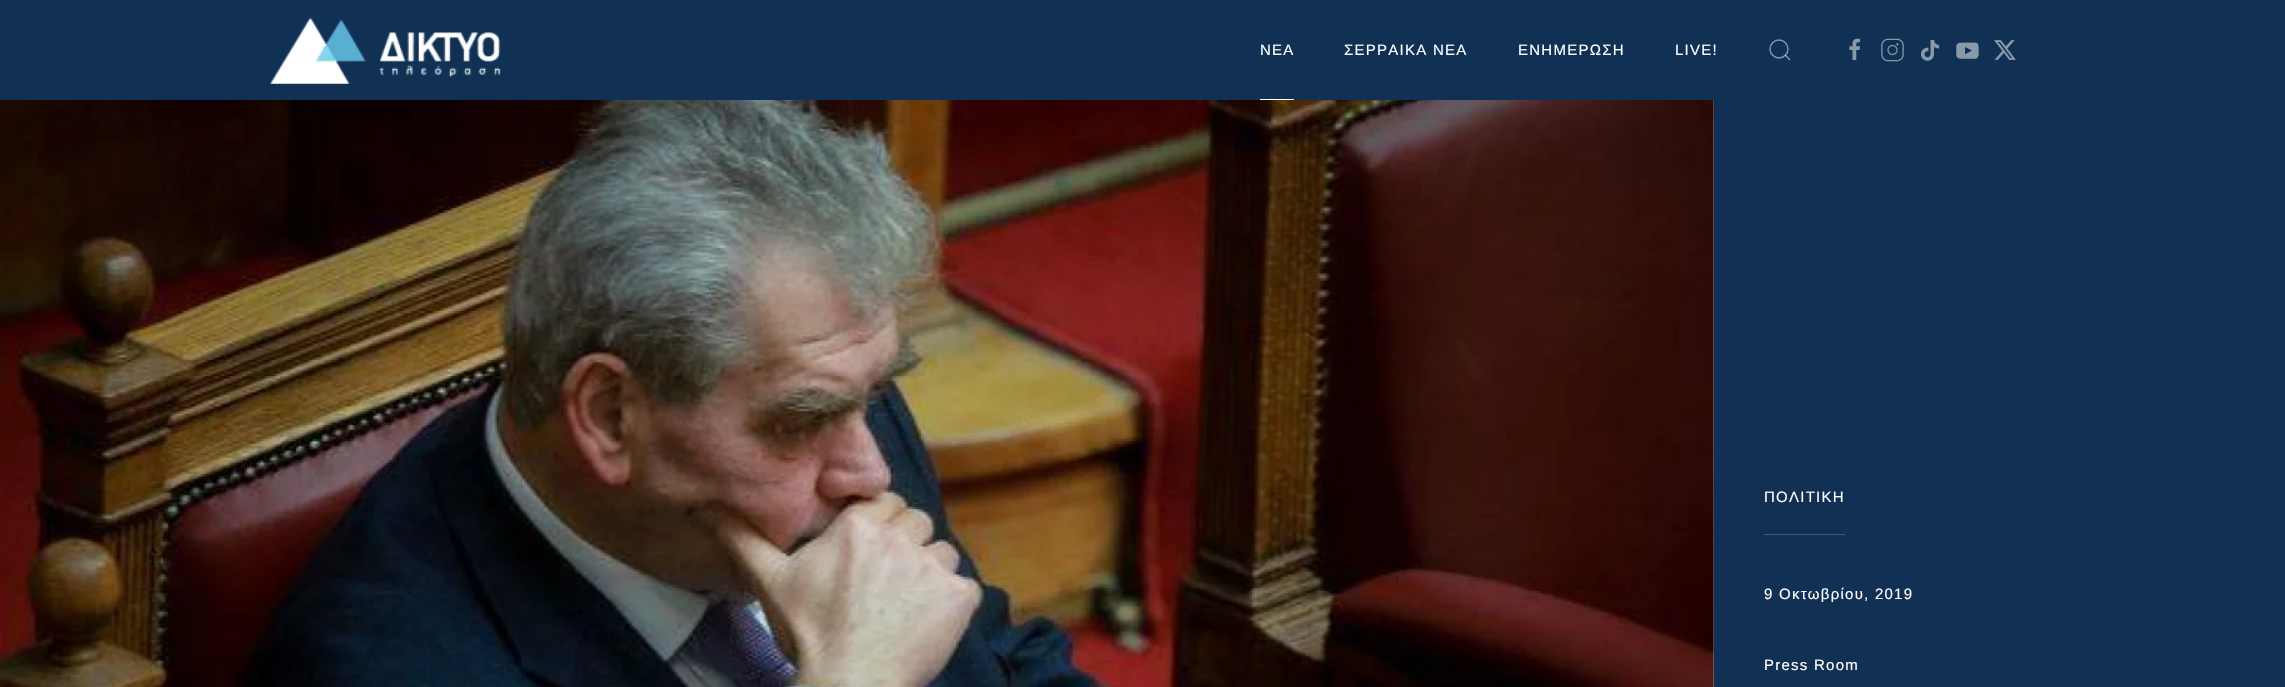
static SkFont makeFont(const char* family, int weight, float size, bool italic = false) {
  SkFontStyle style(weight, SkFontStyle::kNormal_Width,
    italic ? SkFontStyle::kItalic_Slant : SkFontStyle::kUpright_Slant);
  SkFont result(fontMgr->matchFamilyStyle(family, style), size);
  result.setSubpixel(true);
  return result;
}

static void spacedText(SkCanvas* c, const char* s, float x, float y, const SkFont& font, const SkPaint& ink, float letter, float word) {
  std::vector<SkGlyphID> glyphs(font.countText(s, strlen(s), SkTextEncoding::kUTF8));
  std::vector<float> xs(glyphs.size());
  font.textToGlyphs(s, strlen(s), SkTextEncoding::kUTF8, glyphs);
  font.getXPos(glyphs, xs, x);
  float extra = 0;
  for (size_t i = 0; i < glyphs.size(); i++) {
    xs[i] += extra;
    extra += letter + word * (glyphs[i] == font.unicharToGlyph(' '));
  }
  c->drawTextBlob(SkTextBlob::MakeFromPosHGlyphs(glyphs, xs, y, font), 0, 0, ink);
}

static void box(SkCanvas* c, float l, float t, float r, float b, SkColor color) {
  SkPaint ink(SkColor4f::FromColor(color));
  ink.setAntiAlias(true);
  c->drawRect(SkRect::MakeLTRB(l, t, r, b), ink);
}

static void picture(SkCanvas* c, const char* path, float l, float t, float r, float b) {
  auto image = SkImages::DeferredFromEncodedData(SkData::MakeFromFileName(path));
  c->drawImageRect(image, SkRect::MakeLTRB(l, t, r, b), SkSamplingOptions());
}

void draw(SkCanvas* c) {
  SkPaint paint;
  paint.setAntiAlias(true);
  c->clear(0xffffffff);
  box(c, 0, 0, 2285, 100, 0xff113154);
  picture(c, "img_01.png", 270, 17, 501, 84);
  SkFont face1 = makeFont("Liberation Sans", 400, 15);
  paint.setColor(0xffffffff);
  spacedText(c, "NEA", 1260, 55, face1, paint, 1.25f, 0);
  box(c, 1260, 99, 1294, 100, 0xffffffff);
  spacedText(c, "ΣΕΡΡΑΙΚΑ ΝΕΑ", 1344, 55, face1, paint, 1.25f, 0);
  spacedText(c, "ΕΝΗΜΕΡΩΣΗ", 1518, 55, face1, paint, 1.25f, 0);
  spacedText(c, "LIVE!", 1675, 55, face1, paint, 1.25f, 0);
  paint.setStyle(SkPaint::kStroke_Style);
  paint.setStrokeWidth(1.4f);
  paint.setColor(0xff8898aa);
  c->drawCircle(1779, 49, 9, paint);
  paint.setColor(0x80ffffff);
  c->drawPath(SkPathBuilder().moveTo(1785, 55).lineTo(1790, 60).close().detach(), paint);
  picture(c, "img_02.png", 1849, 38, 1860, 60);
  picture(c, "img_03.png", 1881, 38, 1904, 62);
  picture(c, "img_04.png", 1921, 40, 1940, 61);
  picture(c, "img_05.png", 1956, 42, 1979, 59);
  picture(c, "img_06.png", 1994, 40, 2016, 60);
  picture(c, "img_07.png", 0, 100, 1714, 687);
  box(c, 1714, 100, 2285, 687, 0xff113054);
  paint.setStyle(SkPaint::kFill_Style);
  paint.setColor(0xffffffff);
  spacedText(c, "ΠΟΛΙΤΙΚΗ", 1764, 502, face1, paint, 1.25f, 0);
  box(c, 1764, 534, 1845, 535, 0xff415976);
  spacedText(c, "9 Οκτωβρίου, 2019", 1764, 599, face1, paint, 1.25f, 0);
  spacedText(c, "Press Room", 1764, 670, face1, paint, 1.25f, 0);
}
